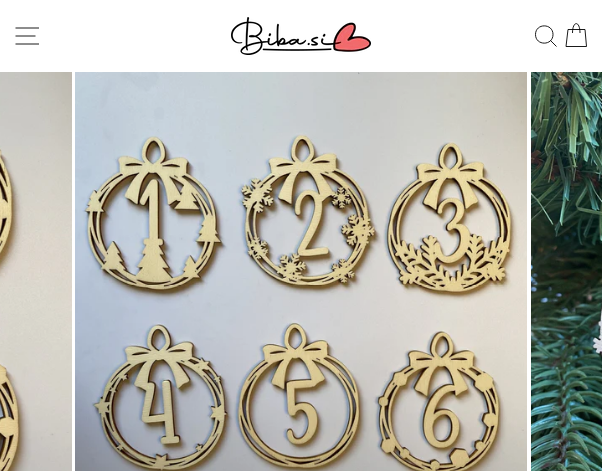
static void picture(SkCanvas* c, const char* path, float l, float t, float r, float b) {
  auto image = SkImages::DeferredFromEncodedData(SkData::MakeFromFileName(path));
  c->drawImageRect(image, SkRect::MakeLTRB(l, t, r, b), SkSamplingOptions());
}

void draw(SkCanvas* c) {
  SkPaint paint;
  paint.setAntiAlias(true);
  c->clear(0xffffffff);
  paint.setStyle(SkPaint::kStroke_Style);
  paint.setStrokeWidth(0.9f);
  paint.setColor(0xff000000);
  c->drawPath(SkPathBuilder().moveTo(15.5f, 28).lineTo(39, 28).moveTo(15.5f, 36).lineTo(35.5f, 36).moveTo(15.5f, 44).lineTo(39, 44).detach(), paint);
  picture(c, "img_01.png", 231, 17, 371, 55);
  c->drawPath(SkPathBuilder().moveTo(553, 34.5f).cubicTo(553, 46, 535.5f, 46, 535.5f, 34.5f).cubicTo(535.5f, 23, 553, 23, 553, 34.5f).close().moveTo(556.5f, 46.5f).lineTo(550.5f, 40.5f).moveTo(572.5f, 33).cubicTo(572.5f, 20.5f, 580, 20.5f, 580, 33).moveTo(568, 29.5f).lineTo(585, 29.5f).lineTo(586.5f, 46.5f).lineTo(566, 46.5f).close().detach(), paint);
  picture(c, "img_02.png", 0, 72, 72, 471);
  picture(c, "img_03.png", 75, 72, 527, 471);
  picture(c, "img_04.png", 531, 72, 602, 471);
}
